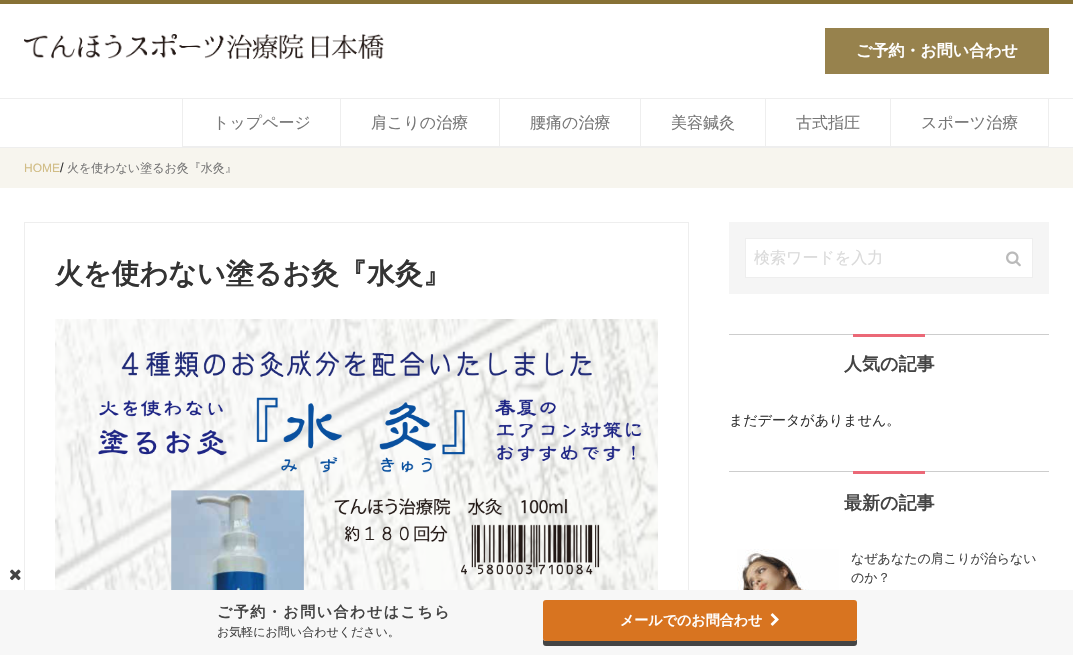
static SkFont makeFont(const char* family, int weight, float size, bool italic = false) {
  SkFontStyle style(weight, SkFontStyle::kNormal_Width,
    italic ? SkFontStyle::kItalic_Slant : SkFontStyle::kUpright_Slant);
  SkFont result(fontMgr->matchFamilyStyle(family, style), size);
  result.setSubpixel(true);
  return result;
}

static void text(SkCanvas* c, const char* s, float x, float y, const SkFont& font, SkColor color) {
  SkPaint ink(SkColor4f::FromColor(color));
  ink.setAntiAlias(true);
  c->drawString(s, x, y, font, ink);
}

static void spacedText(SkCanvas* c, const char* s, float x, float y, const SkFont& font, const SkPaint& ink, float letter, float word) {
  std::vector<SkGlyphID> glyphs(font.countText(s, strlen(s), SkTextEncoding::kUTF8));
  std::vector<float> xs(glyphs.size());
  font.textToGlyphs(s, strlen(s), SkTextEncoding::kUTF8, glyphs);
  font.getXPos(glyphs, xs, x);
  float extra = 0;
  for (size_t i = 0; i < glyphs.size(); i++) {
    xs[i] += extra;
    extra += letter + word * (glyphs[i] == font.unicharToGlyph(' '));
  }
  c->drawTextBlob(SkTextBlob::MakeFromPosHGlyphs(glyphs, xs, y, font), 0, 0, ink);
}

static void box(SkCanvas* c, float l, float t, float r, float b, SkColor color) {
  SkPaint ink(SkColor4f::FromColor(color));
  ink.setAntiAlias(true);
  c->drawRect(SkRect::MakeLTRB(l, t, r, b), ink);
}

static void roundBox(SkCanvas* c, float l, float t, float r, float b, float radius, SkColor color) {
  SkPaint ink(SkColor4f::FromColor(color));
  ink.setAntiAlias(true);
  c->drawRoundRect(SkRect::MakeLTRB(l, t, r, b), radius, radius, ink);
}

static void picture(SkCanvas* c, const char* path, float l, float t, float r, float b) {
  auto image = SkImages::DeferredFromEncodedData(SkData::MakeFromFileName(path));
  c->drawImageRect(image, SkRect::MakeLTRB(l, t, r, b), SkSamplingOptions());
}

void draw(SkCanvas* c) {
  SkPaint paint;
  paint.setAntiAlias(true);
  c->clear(0xffffffff);
  box(c, 0, 0, 1073, 4, 0xff877135);
  picture(c, "img_01.png", 24, 34, 384, 59);
  box(c, 825, 28, 1049, 74, 0xff97824d);
  SkFont face1 = makeFont("WenQuanYi Zen Hei", 700, 16);
  text(c, "ご予約・お問い合わせ", 856, 56, face1, 0xffffffff);
  box(c, 0, 98, 1073, 99, 0xffeeeeee);
  box(c, 0, 147, 1073, 148, 0xffeeeeee);
  box(c, 182, 146, 890, 147, 0xffeeeeee);
  box(c, 182, 99, 183, 147, 0xffeeeeee);
  SkFont face2 = makeFont("WenQuanYi Zen Hei", 500, 16);
  text(c, "トップページ", 213, 128, face2, 0xff777777);
  box(c, 340, 99, 341, 147, 0xffeeeeee);
  text(c, "肩こりの治療", 371, 128, face2, 0xff777777);
  box(c, 499, 99, 500, 147, 0xffeeeeee);
  text(c, "腰痛の治療", 530, 128, face2, 0xff777777);
  box(c, 640, 99, 641, 147, 0xffeeeeee);
  text(c, "美容鍼灸", 671, 128, face2, 0xff777777);
  box(c, 765, 99, 766, 147, 0xffeeeeee);
  text(c, "古式指圧", 796, 128, face2, 0xff777777);
  box(c, 1048, 99, 1049, 147, 0xffeeeeee);
  box(c, 890, 146, 1049, 147, 0xffeeeeee);
  box(c, 890, 99, 891, 147, 0xffeeeeee);
  text(c, "スポーツ治療", 921, 128, face2, 0xff777777);
  box(c, 0, 148, 1073, 188, 0xfff7f5ee);
  SkFont face3 = makeFont("Liberation Sans", 400, 12);
  text(c, "HOME", 24, 172, face3, 0xffd1bd86);
  SkFont face4 = makeFont("Liberation Sans", 400, 13);
  text(c, "/", 60, 172, face4, 0xff333333);
  SkFont face5 = makeFont("WenQuanYi Zen Hei", 500, 12);
  text(c, "火を使わない塗るお灸『水灸』", 67, 172, face5, 0xff777777);
  paint.setStyle(SkPaint::kStroke_Style);
  paint.setStrokeWidth(1);
  paint.setColor(0xffeeeeee);
  c->drawRect(SkRect::MakeLTRB(24.5f, 222.5f, 688.5f, 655.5f), paint);
  SkFont face6 = makeFont("WenQuanYi Zen Hei", 700, 28);
  text(c, "火を使わない塗るお灸『水灸』", 55, 283, face6, 0xff333333);
  picture(c, "img_02.png", 55, 319, 658, 590);
  box(c, 729, 222, 1049, 294, 0xfff5f5f5);
  paint.setStyle(SkPaint::kFill_Style);
  paint.setColor(0xffffffff);
  c->drawRect(SkRect::MakeLTRB(745.5f, 238.5f, 1032.5f, 277.5f), paint);
  paint.setStyle(SkPaint::kStroke_Style);
  paint.setColor(0xffeeeeee);
  c->drawRect(SkRect::MakeLTRB(745.5f, 238.5f, 1032.5f, 277.5f), paint);
  text(c, "検索ワードを入力", 754, 263, face2, 0xffdadada);
  picture(c, "img_03.png", 1006, 251, 1021, 267);
  box(c, 729, 334, 1049, 335, 0xffcdcdcd);
  box(c, 853, 334, 925, 337, 0xffeb6877);
  SkFont face7 = makeFont("WenQuanYi Zen Hei", 700, 18);
  text(c, "人気の記事", 844, 370, face7, 0xff444444);
  SkFont face8 = makeFont("WenQuanYi Zen Hei", 500, 14);
  text(c, "まだデータがありません。", 729, 425, face8, 0xff333333);
  box(c, 729, 471, 1049, 472, 0xffcdcdcd);
  box(c, 853, 471, 925, 474, 0xffeb6877);
  text(c, "最新の記事", 844, 509, face7, 0xff444444);
  picture(c, "img_04.png", 737, 549, 839, 590);
  SkFont face9 = makeFont("WenQuanYi Zen Hei", 500, 13);
  text(c, "なぜあなたの肩こりが治らない", 851, 563, face9, 0xff444444);
  text(c, "のか？", 851, 582, face9, 0xff444444);
  box(c, 0, 590, 1073, 655, 0xfff7f7f7);
  picture(c, "img_05.png", 10, 569, 21, 581);
  SkFont face10 = makeFont("WenQuanYi Zen Hei", 700, 15);
  paint.setStyle(SkPaint::kFill_Style);
  paint.setColor(0xff444444);
  spacedText(c, "ご予約・お問い合わせはこちら", 217, 617, face10, paint, 1.5f, 0);
  text(c, "お気軽にお問い合わせください。", 217, 636, face5, 0xff444444);
  c->drawPath(SkPathBuilder().moveTo(543, 638).lineTo(543, 643).cubicTo(543, 645, 544, 646, 546, 646).lineTo(854, 646).cubicTo(856, 646, 857, 645, 857, 643).lineTo(857, 638).cubicTo(857, 640, 856, 641, 854, 641).lineTo(546, 641).cubicTo(544, 641, 543, 640, 543, 638).close().detach(), paint);
  roundBox(c, 543, 600, 857, 641, 3, 0xffd87420);
  SkFont face11 = makeFont("WenQuanYi Zen Hei", 700, 14);
  text(c, "メールでのお問合わせ", 620, 625, face11, 0xffffffff);
  picture(c, "img_06.png", 770, 613, 779, 626);
}
